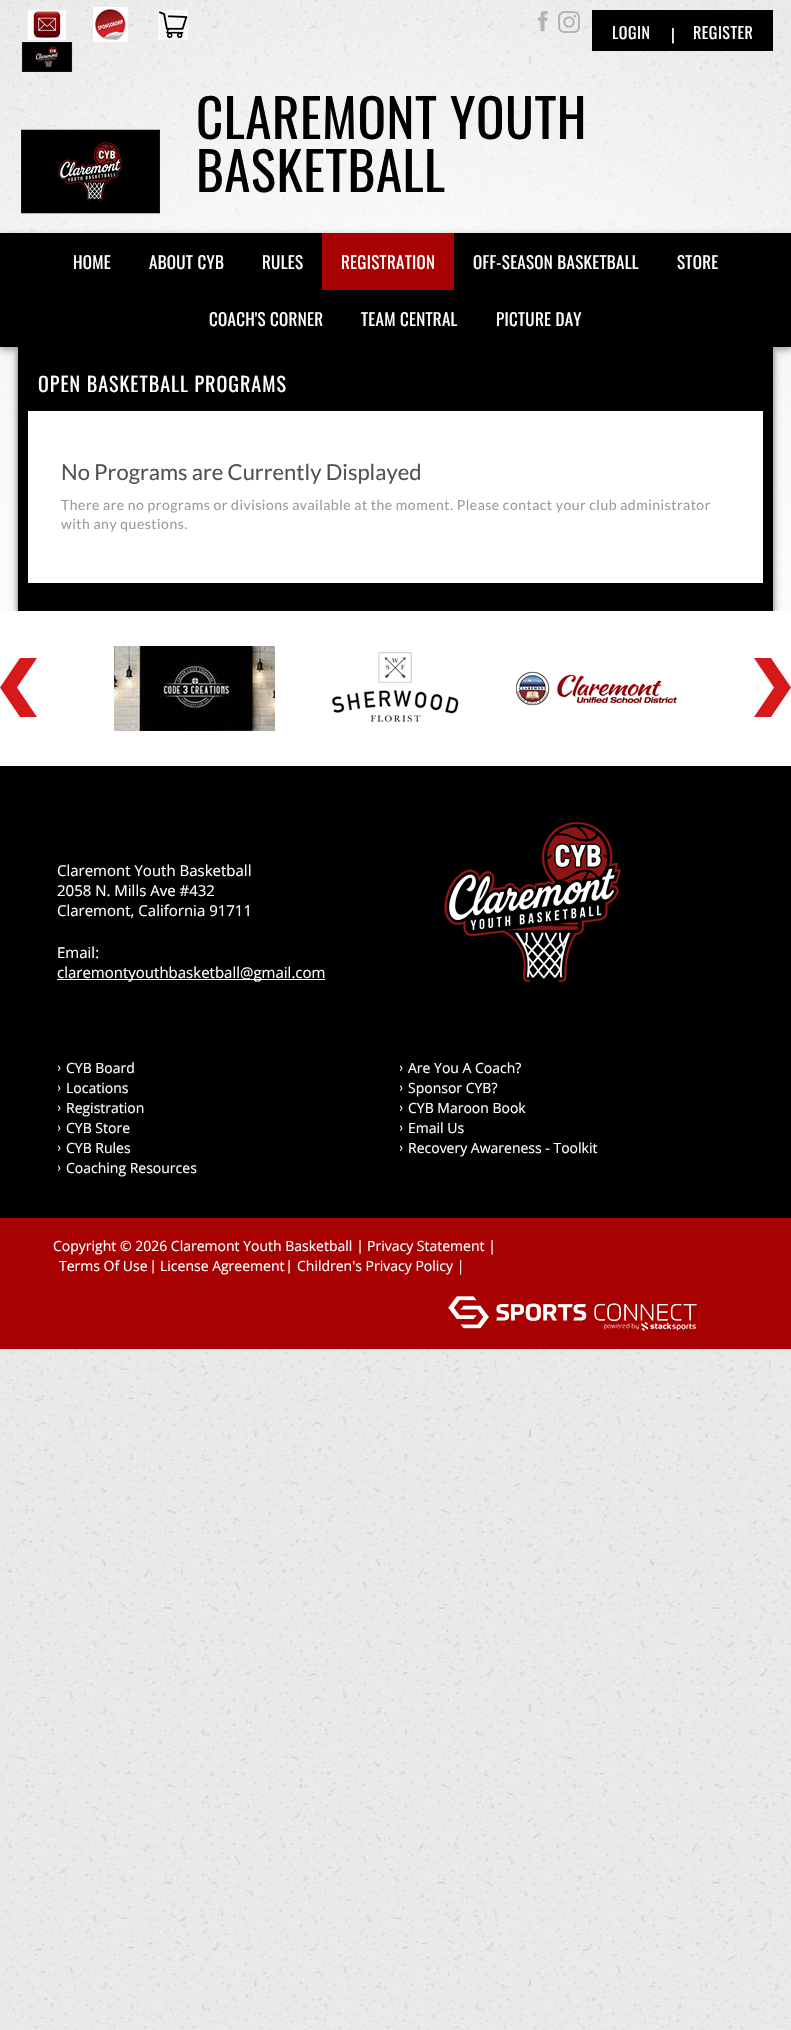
static SkFont makeFont(const char* family, int weight, float size, bool italic = false) {
  SkFontStyle style(weight, SkFontStyle::kNormal_Width,
    italic ? SkFontStyle::kItalic_Slant : SkFontStyle::kUpright_Slant);
  SkFont result(fontMgr->matchFamilyStyle(family, style), size);
  result.setSubpixel(true);
  return result;
}

static void text(SkCanvas* c, const char* s, float x, float y, const SkFont& font, SkColor color) {
  SkPaint ink(SkColor4f::FromColor(color));
  ink.setAntiAlias(true);
  c->drawString(s, x, y, font, ink);
}

static void spacedText(SkCanvas* c, const char* s, float x, float y, const SkFont& font, const SkPaint& ink, float letter, float word) {
  std::vector<SkGlyphID> glyphs(font.countText(s, strlen(s), SkTextEncoding::kUTF8));
  std::vector<float> xs(glyphs.size());
  font.textToGlyphs(s, strlen(s), SkTextEncoding::kUTF8, glyphs);
  font.getXPos(glyphs, xs, x);
  float extra = 0;
  for (size_t i = 0; i < glyphs.size(); i++) {
    xs[i] += extra;
    extra += letter + word * (glyphs[i] == font.unicharToGlyph(' '));
  }
  c->drawTextBlob(SkTextBlob::MakeFromPosHGlyphs(glyphs, xs, y, font), 0, 0, ink);
}

static void box(SkCanvas* c, float l, float t, float r, float b, SkColor color) {
  SkPaint ink(SkColor4f::FromColor(color));
  ink.setAntiAlias(true);
  c->drawRect(SkRect::MakeLTRB(l, t, r, b), ink);
}

static void picture(SkCanvas* c, const char* path, float l, float t, float r, float b) {
  auto image = SkImages::DeferredFromEncodedData(SkData::MakeFromFileName(path));
  c->drawImageRect(image, SkRect::MakeLTRB(l, t, r, b), SkSamplingOptions());
}

void draw(SkCanvas* c) {
  SkPaint paint;
  paint.setAntiAlias(true);
  c->clear(0xffffffff);
  picture(c, "img_01.png", 0, 0, 791, 2030);
  picture(c, "img_02.png", 0, 0, 791, 611);
  picture(c, "img_03.png", 27, 10, 67, 40);
  picture(c, "img_04.png", 93, 7, 128, 42);
  picture(c, "img_05.png", 158, 10, 189, 40);
  picture(c, "img_06.png", 21, 42, 73, 72);
  picture(c, "img_07.png", 538, 11, 548, 32);
  picture(c, "img_08.png", 558, 11, 580, 33);
  box(c, 592, 10, 773, 51, 0xff000000);
  SkFont face1 = makeFont("Oswald", 400, 16);
  paint.setColor(0xffffffff);
  spacedText(c, "LOGIN", 612, 39, face1, paint, 0.5f, 0);
  spacedText(c, "|", 671, 41, face1, paint, 0.5f, 0);
  spacedText(c, "REGISTER", 693, 39, face1, paint, 0.5f, 0);
  picture(c, "img_09.png", 21, 129, 160, 214);
  SkFont face2 = makeFont("Oswald", 400, 53);
  paint.setColor(0xff010101);
  spacedText(c, "CLAREMONT YOUTH", 196, 139, face2, paint, 0.5f, 0);
  spacedText(c, "BASKETBALL", 196, 192, face2, paint, 0.5f, 0);
  paint.setColor(0x59000000);
  paint.setMaskFilter(SkMaskFilter::MakeBlur(kNormal_SkBlurStyle, 3.5f));
  c->drawRect(SkRect::MakeLTRB(0, 236, 791, 350), paint);
  paint.setMaskFilter(nullptr);
  box(c, 0, 233, 791, 347, 0xff000000);
  SkFont face3 = makeFont("Oswald", 400, 17);
  paint.setColor(0xffffffff);
  spacedText(c, "HOME", 73, 269, face3, paint, 0.3f, 0);
  spacedText(c, "ABOUT CYB", 149, 269, face3, paint, 0.3f, 0);
  spacedText(c, "RULES", 262, 269, face3, paint, 0.3f, 0);
  box(c, 322, 233, 454, 290, 0xffa70102);
  spacedText(c, "REGISTRATION", 341, 269, face3, paint, 0.3f, 0);
  spacedText(c, "OFF-SEASON BASKETBALL", 473, 269, face3, paint, 0.3f, 0);
  spacedText(c, "STORE", 677, 269, face3, paint, 0.3f, 0);
  spacedText(c, "COACH'S CORNER", 209, 326, face3, paint, 0.3f, 0);
  spacedText(c, "TEAM CENTRAL", 361, 326, face3, paint, 0.3f, 0);
  spacedText(c, "PICTURE DAY", 496, 326, face3, paint, 0.3f, 0);
  paint.setColor(0x9c000000);
  paint.setMaskFilter(SkMaskFilter::MakeBlur(kNormal_SkBlurStyle, 3.5f));
  c->drawRect(SkRect::MakeLTRB(18, 350, 773, 614), paint);
  paint.setMaskFilter(nullptr);
  box(c, 18, 347, 773, 611, 0xff000000);
  SkFont face4 = makeFont("Oswald", 400, 20);
  paint.setColor(0xffffffff);
  spacedText(c, "OPEN BASKETBALL PROGRAMS", 38, 392, face4, paint, 1, 0);
  box(c, 28, 411, 763, 583, 0xffffffff);
  SkFont face5 = makeFont("Lato", 400, 22);
  text(c, "No Programs are Currently Displayed", 61, 480, face5, 0xff525252);
  SkFont face6 = makeFont("Lato", 400, 14);
  paint.setColor(0xff9b9b9b);
  spacedText(c, "There are no programs or divisions available at the moment. Please contact your club administrator", 61, 510, face6, paint, 0.5f, 0);
  spacedText(c, "with any questions.", 61, 529, face6, paint, 0.5f, 0);
  box(c, 0, 611, 791, 766, 0xffffffff);
  picture(c, "img_10.png", 0, 658, 37, 717);
  picture(c, "img_11.png", 114, 646, 275, 731);
  picture(c, "img_12.png", 332, 652, 459, 723);
  picture(c, "img_13.png", 516, 671, 677, 706);
  picture(c, "img_14.png", 754, 658, 791, 717);
  box(c, 0, 766, 791, 1218, 0xff000000);
  SkFont face7 = makeFont("Open Sans", 400, 15);
  text(c, "Claremont Youth Basketball", 57, 876, face7, 0xffffffff);
  text(c, "2058 N. Mills Ave #432", 57, 896, face7, 0xffffffff);
  text(c, "Claremont, California 91711", 57, 916, face7, 0xffffffff);
  text(c, "Email:", 57, 958, face7, 0xffffffff);
  box(c, 57, 979, 325, 980, 0xffffffff);
  text(c, "claremontyouthbasketball@gmail.com", 57, 978, face7, 0xffffffff);
  picture(c, "img_15.png", 444, 822, 621, 983);
  text(c, "›", 57, 1072, face6, 0xffffffff);
  SkFont face8 = makeFont("Open Sans", 400, 14);
  text(c, "CYB Board", 66, 1073, face8, 0xffffffff);
  text(c, "›", 57, 1092, face6, 0xffffffff);
  text(c, "Locations", 66, 1093, face8, 0xffffffff);
  text(c, "›", 57, 1112, face6, 0xffffffff);
  text(c, "Registration", 66, 1113, face8, 0xffffffff);
  text(c, "›", 57, 1132, face6, 0xffffffff);
  text(c, "CYB Store", 66, 1133, face8, 0xffffffff);
  text(c, "›", 57, 1152, face6, 0xffffffff);
  text(c, "CYB Rules", 66, 1153, face8, 0xffffffff);
  text(c, "›", 57, 1172, face6, 0xffffffff);
  text(c, "Coaching Resources", 66, 1173, face8, 0xffffffff);
  text(c, "›", 399, 1072, face6, 0xffffffff);
  text(c, "Are You A Coach?", 408, 1073, face8, 0xffffffff);
  text(c, "›", 399, 1092, face6, 0xffffffff);
  text(c, "Sponsor CYB?", 408, 1093, face8, 0xffffffff);
  text(c, "›", 399, 1112, face6, 0xffffffff);
  text(c, "CYB Maroon Book", 408, 1113, face8, 0xffffffff);
  text(c, "›", 399, 1132, face6, 0xffffffff);
  text(c, "Email Us", 408, 1133, face8, 0xffffffff);
  text(c, "›", 399, 1152, face6, 0xffffffff);
  text(c, "Recovery Awareness - Toolkit", 408, 1153, face8, 0xffffffff);
  box(c, 0, 1218, 791, 1349, 0xffa70102);
  text(c, "Copyright © 2026 Claremont Youth Basketball", 53, 1251, face8, 0xffffffff);
  text(c, "|", 358, 1251, face6, 0xffffffff);
  text(c, "Privacy Statement |", 367, 1251, face8, 0xffffffff);
  text(c, "Terms Of Use", 59, 1271, face8, 0xffffffff);
  text(c, "|", 151, 1271, face6, 0xffffffff);
  text(c, "License Agreement", 160, 1271, face8, 0xffffffff);
  text(c, "|", 287, 1271, face6, 0xffffffff);
  text(c, "Children's Privacy Policy |", 297, 1271, face8, 0xffffffff);
  picture(c, "img_16.png", 448, 1296, 697, 1331);
}
